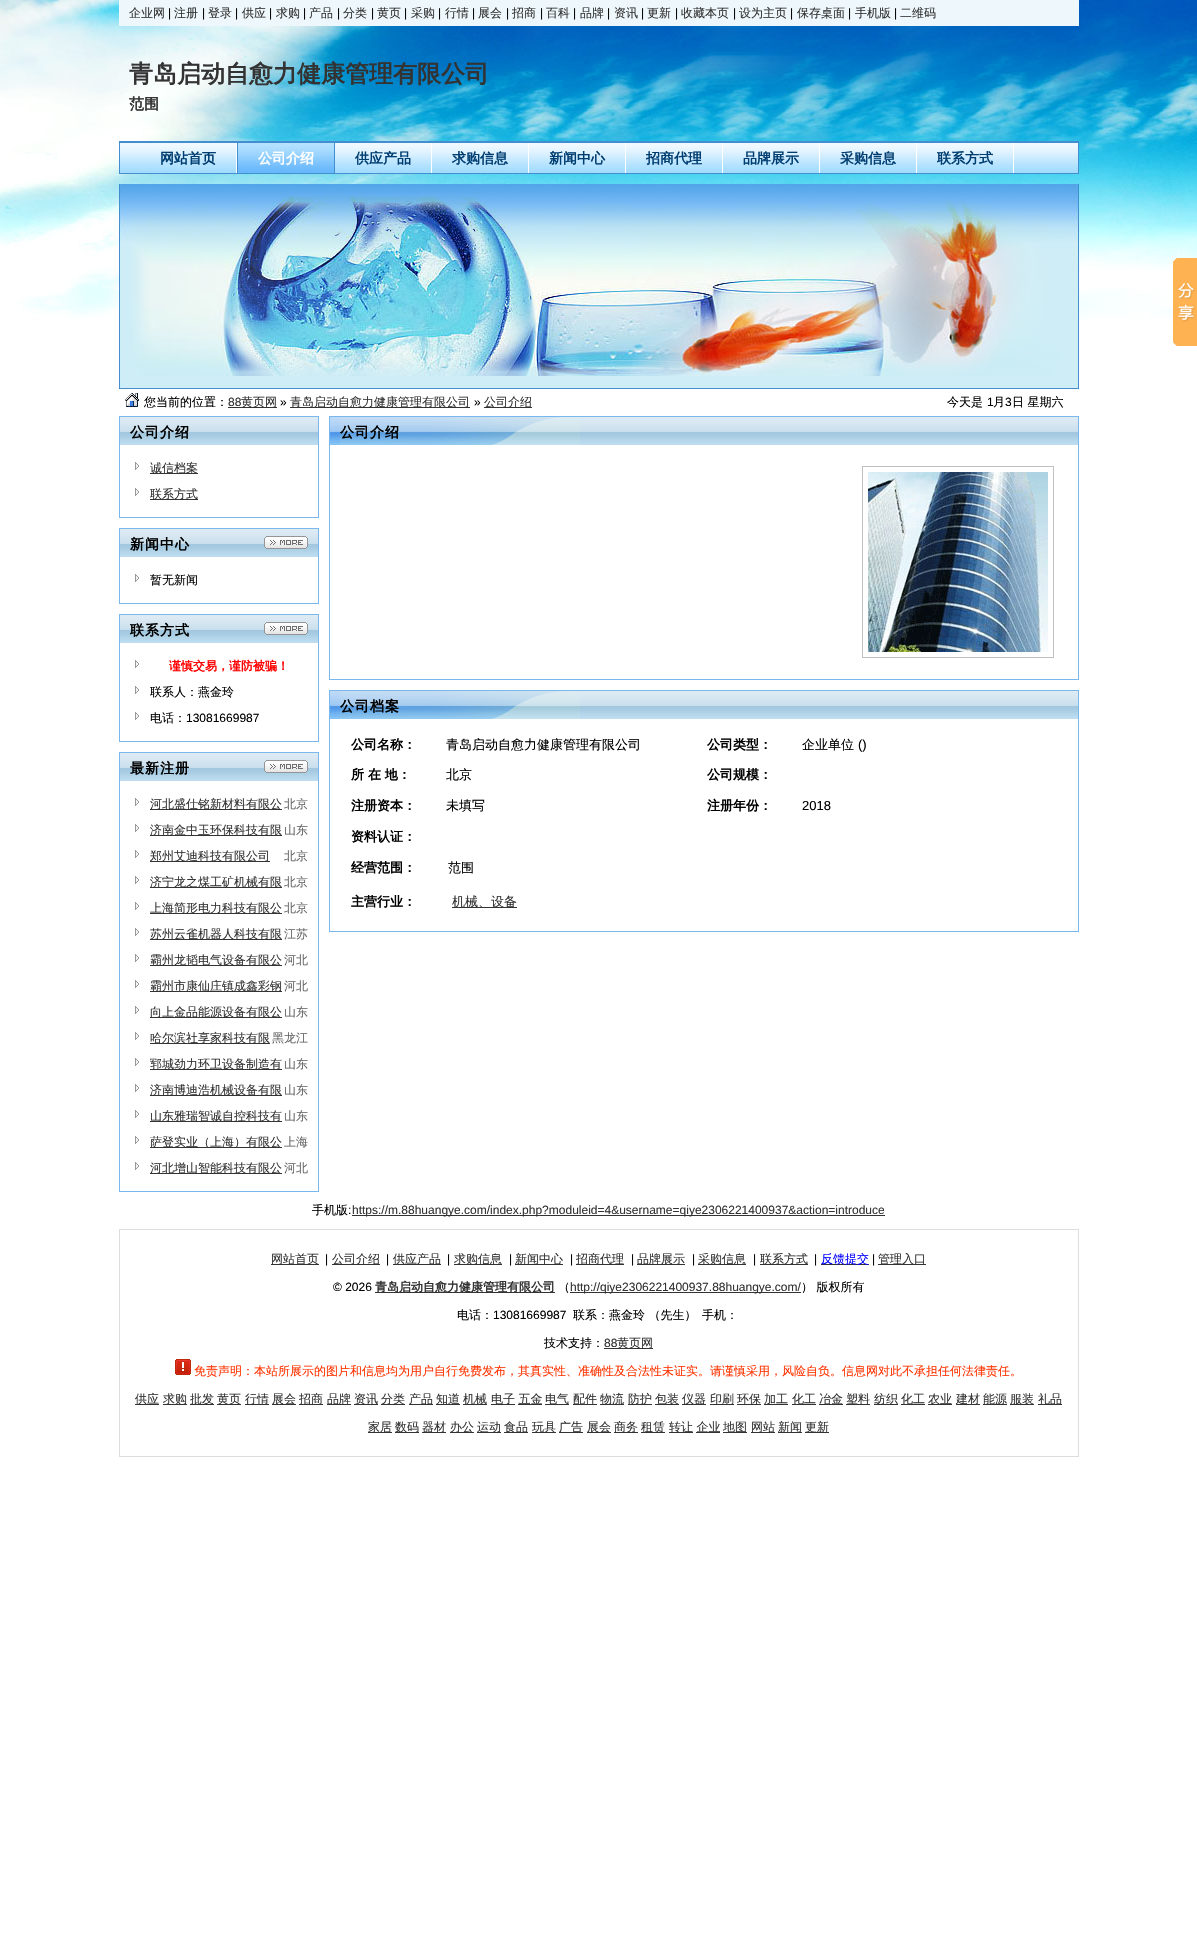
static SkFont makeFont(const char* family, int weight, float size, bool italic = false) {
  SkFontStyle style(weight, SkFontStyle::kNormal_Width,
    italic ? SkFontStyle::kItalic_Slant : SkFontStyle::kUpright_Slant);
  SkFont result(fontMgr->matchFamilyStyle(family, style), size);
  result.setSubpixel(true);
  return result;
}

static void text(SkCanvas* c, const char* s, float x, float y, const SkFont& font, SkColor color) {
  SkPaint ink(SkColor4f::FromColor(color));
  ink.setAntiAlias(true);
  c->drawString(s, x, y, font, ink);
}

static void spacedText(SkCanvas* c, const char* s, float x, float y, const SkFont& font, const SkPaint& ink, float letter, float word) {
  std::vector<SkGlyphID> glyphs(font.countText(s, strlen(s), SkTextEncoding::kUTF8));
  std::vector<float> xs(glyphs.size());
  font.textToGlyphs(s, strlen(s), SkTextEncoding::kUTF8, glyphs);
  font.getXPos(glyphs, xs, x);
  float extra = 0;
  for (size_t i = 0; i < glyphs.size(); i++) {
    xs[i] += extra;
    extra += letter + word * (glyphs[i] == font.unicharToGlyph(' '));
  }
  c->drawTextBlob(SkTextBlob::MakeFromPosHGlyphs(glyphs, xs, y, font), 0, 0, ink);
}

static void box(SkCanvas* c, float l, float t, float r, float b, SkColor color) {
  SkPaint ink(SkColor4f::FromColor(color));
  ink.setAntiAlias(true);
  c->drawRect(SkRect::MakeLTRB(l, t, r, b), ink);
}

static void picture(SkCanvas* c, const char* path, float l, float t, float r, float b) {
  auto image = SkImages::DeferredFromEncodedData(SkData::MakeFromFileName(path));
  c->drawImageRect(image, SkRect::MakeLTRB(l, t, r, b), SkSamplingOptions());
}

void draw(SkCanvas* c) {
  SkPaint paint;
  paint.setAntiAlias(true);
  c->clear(0xffffffff);
  picture(c, "img_01.png", 0, 0, 1197, 320);
  box(c, 119, 0, 1079, 26, 0xffeef7fb);
  SkFont face1 = makeFont("WenQuanYi Zen Hei", 500, 12);
  text(c, "企业网", 129, 17, face1, 0xff333333);
  SkFont face2 = makeFont("Liberation Sans", 400, 12);
  text(c, "|", 168, 17, face2, 0xff000000);
  text(c, "注册", 174, 17, face1, 0xff333333);
  text(c, "|", 202, 17, face2, 0xff000000);
  text(c, "登录", 208, 17, face1, 0xff333333);
  text(c, "|", 235, 17, face2, 0xff000000);
  text(c, "供应", 242, 17, face1, 0xff333333);
  text(c, "|", 269, 17, face2, 0xff000000);
  text(c, "求购", 276, 17, face1, 0xff333333);
  text(c, "|", 303, 17, face2, 0xff000000);
  text(c, "产品", 309, 17, face1, 0xff333333);
  text(c, "|", 337, 17, face2, 0xff000000);
  text(c, "分类", 343, 17, face1, 0xff333333);
  text(c, "|", 371, 17, face2, 0xff000000);
  text(c, "黄页", 377, 17, face1, 0xff333333);
  text(c, "|", 404, 17, face2, 0xff000000);
  text(c, "采购", 411, 17, face1, 0xff333333);
  text(c, "|", 438, 17, face2, 0xff000000);
  text(c, "行情", 445, 17, face1, 0xff333333);
  text(c, "|", 472, 17, face2, 0xff000000);
  text(c, "展会", 478, 17, face1, 0xff333333);
  text(c, "|", 506, 17, face2, 0xff000000);
  text(c, "招商", 512, 17, face1, 0xff333333);
  text(c, "|", 540, 17, face2, 0xff000000);
  text(c, "百科", 546, 17, face1, 0xff333333);
  text(c, "|", 573, 17, face2, 0xff000000);
  text(c, "品牌", 580, 17, face1, 0xff333333);
  text(c, "|", 607, 17, face2, 0xff000000);
  text(c, "资讯", 614, 17, face1, 0xff333333);
  text(c, "|", 641, 17, face2, 0xff000000);
  text(c, "更新", 647, 17, face1, 0xff333333);
  text(c, "|", 675, 17, face2, 0xff000000);
  text(c, "收藏本页", 681, 17, face1, 0xff333333);
  text(c, "|", 733, 17, face2, 0xff000000);
  text(c, "设为主页", 739, 17, face1, 0xff333333);
  text(c, "|", 790, 17, face2, 0xff000000);
  text(c, "保存桌面", 797, 17, face1, 0xff333333);
  text(c, "|", 848, 17, face2, 0xff000000);
  text(c, "手机版", 855, 17, face1, 0xff333333);
  text(c, "|", 894, 17, face2, 0xff000000);
  text(c, "二维码", 900, 17, face1, 0xff333333);
  SkFont face3 = makeFont("WenQuanYi Zen Hei", 700, 24);
  text(c, "青岛启动自愈力健康管理有限公司", 129, 82, face3, 0xff333333);
  SkFont face4 = makeFont("WenQuanYi Zen Hei", 700, 15);
  text(c, "范围", 129, 109, face4, 0xff333333);
  picture(c, "img_02.png", 120, 143, 1078, 173);
  box(c, 119, 141, 1079, 143, 0xff438ece);
  box(c, 1078, 141, 1079, 174, 0xff438ece);
  box(c, 119, 173, 1079, 174, 0xff438ece);
  box(c, 119, 141, 120, 174, 0xff438ece);
  box(c, 236, 143, 237, 173, 0xffffffff);
  SkFont face5 = makeFont("WenQuanYi Zen Hei", 700, 14);
  text(c, "网站首页", 160, 163, face5, 0xff003d70);
  picture(c, "img_03.png", 238, 143, 334, 173);
  box(c, 334, 143, 335, 173, 0xff438ece);
  box(c, 237, 143, 238, 173, 0xff438ece);
  text(c, "公司介绍", 258, 163, face5, 0xffffffff);
  box(c, 431, 143, 432, 173, 0xffffffff);
  text(c, "供应产品", 355, 163, face5, 0xff003d70);
  box(c, 528, 143, 529, 173, 0xffffffff);
  text(c, "求购信息", 452, 163, face5, 0xff003d70);
  box(c, 625, 143, 626, 173, 0xffffffff);
  text(c, "新闻中心", 549, 163, face5, 0xff003d70);
  box(c, 722, 143, 723, 173, 0xffffffff);
  text(c, "招商代理", 646, 163, face5, 0xff003d70);
  box(c, 819, 143, 820, 173, 0xffffffff);
  text(c, "品牌展示", 743, 163, face5, 0xff003d70);
  box(c, 916, 143, 917, 173, 0xffffffff);
  text(c, "采购信息", 840, 163, face5, 0xff003d70);
  box(c, 1013, 143, 1014, 173, 0xffffffff);
  text(c, "联系方式", 937, 163, face5, 0xff003d70);
  picture(c, "img_04.png", 119, 184, 1079, 389);
  picture(c, "img_05.png", 1173, 258, 1197, 346);
  picture(c, "img_06.png", 125, 393, 139, 407);
  text(c, "您当前的位置：", 144, 406, face1, 0xff000000);
  text(c, "88", 228, 406, face2, 0xff333333);
  box(c, 228, 407, 277, 408, 0xff333333);
  text(c, "黄页网", 241, 406, face1, 0xff333333);
  text(c, "»", 280, 406, face2, 0xff000000);
  box(c, 290, 407, 470, 408, 0xff333333);
  text(c, "青岛启动自愈力健康管理有限公司", 290, 406, face1, 0xff333333);
  text(c, "»", 474, 406, face2, 0xff000000);
  box(c, 484, 407, 532, 408, 0xff333333);
  text(c, "公司介绍", 484, 406, face1, 0xff333333);
  text(c, "今天是", 947, 406, face1, 0xff000000);
  text(c, "1", 987, 406, face2, 0xff000000);
  text(c, "月", 993, 406, face1, 0xff000000);
  text(c, "3", 1005, 406, face2, 0xff000000);
  text(c, "日 星期六", 1012, 406, face1, 0xff000000);
  picture(c, "img_07.png", 120, 417, 318, 445);
  box(c, 119, 416, 319, 417, 0xff79b7ec);
  box(c, 318, 416, 319, 518, 0xff79b7ec);
  box(c, 119, 416, 120, 445, 0xff79b7ec);
  paint.setColor(0xff000000);
  spacedText(c, "公司介绍", 130, 437, face5, paint, 1, 0);
  box(c, 119, 517, 319, 518, 0xff79b7ec);
  box(c, 119, 445, 120, 518, 0xff79b7ec);
  picture(c, "img_08.png", 135, 462, 139, 470);
  box(c, 150, 473, 198, 474, 0xff333333);
  text(c, "诚信档案", 150, 472, face1, 0xff333333);
  picture(c, "img_08.png", 135, 488, 139, 496);
  box(c, 150, 499, 198, 500, 0xff333333);
  text(c, "联系方式", 150, 498, face1, 0xff333333);
  picture(c, "img_07.png", 120, 529, 318, 557);
  box(c, 119, 528, 319, 529, 0xff79b7ec);
  box(c, 318, 528, 319, 604, 0xff79b7ec);
  box(c, 119, 528, 120, 557, 0xff79b7ec);
  spacedText(c, "新闻中心", 130, 549, face5, paint, 1, 0);
  picture(c, "img_09.png", 264, 536, 308, 549);
  box(c, 119, 603, 319, 604, 0xff79b7ec);
  box(c, 119, 557, 120, 604, 0xff79b7ec);
  picture(c, "img_08.png", 135, 574, 139, 582);
  text(c, "暂无新闻", 150, 584, face1, 0xff000000);
  picture(c, "img_07.png", 120, 615, 318, 643);
  box(c, 119, 614, 319, 615, 0xff79b7ec);
  box(c, 318, 614, 319, 742, 0xff79b7ec);
  box(c, 119, 614, 120, 643, 0xff79b7ec);
  spacedText(c, "联系方式", 130, 635, face5, paint, 1, 0);
  picture(c, "img_09.png", 264, 622, 308, 635);
  box(c, 119, 741, 319, 742, 0xff79b7ec);
  box(c, 119, 643, 120, 742, 0xff79b7ec);
  picture(c, "img_08.png", 135, 660, 139, 668);
  SkFont face6 = makeFont("WenQuanYi Zen Hei", 700, 12);
  text(c, "谨慎交易，谨防被骗！", 169, 670, face6, 0xffff0000);
  picture(c, "img_08.png", 135, 686, 139, 694);
  text(c, "联系人：燕金玲", 150, 696, face1, 0xff000000);
  picture(c, "img_08.png", 135, 712, 139, 720);
  text(c, "电话：", 150, 722, face1, 0xff000000);
  text(c, "13081669987", 186, 722, face2, 0xff000000);
  picture(c, "img_07.png", 120, 753, 318, 781);
  box(c, 119, 752, 319, 753, 0xff79b7ec);
  box(c, 318, 752, 319, 1192, 0xff79b7ec);
  box(c, 119, 752, 120, 781, 0xff79b7ec);
  spacedText(c, "最新注册", 130, 773, face5, paint, 1, 0);
  picture(c, "img_09.png", 264, 760, 308, 773);
  box(c, 119, 1191, 319, 1192, 0xff79b7ec);
  box(c, 119, 781, 120, 1192, 0xff79b7ec);
  picture(c, "img_08.png", 135, 798, 139, 806);
  box(c, 150, 809, 282, 810, 0xff333333);
  text(c, "河北盛仕铭新材料有限公", 150, 808, face1, 0xff333333);
  text(c, "北京", 284, 808, face1, 0xff666666);
  picture(c, "img_08.png", 135, 824, 139, 832);
  box(c, 150, 835, 282, 836, 0xff333333);
  text(c, "济南金中玉环保科技有限", 150, 834, face1, 0xff333333);
  text(c, "山东", 284, 834, face1, 0xff666666);
  picture(c, "img_08.png", 135, 850, 139, 858);
  box(c, 150, 861, 270, 862, 0xff333333);
  text(c, "郑州艾迪科技有限公司", 150, 860, face1, 0xff333333);
  text(c, "北京", 284, 860, face1, 0xff666666);
  picture(c, "img_08.png", 135, 876, 139, 884);
  box(c, 150, 887, 282, 888, 0xff333333);
  text(c, "济宁龙之煤工矿机械有限", 150, 886, face1, 0xff333333);
  text(c, "北京", 284, 886, face1, 0xff666666);
  picture(c, "img_08.png", 135, 902, 139, 910);
  box(c, 150, 913, 282, 914, 0xff333333);
  text(c, "上海简形电力科技有限公", 150, 912, face1, 0xff333333);
  text(c, "北京", 284, 912, face1, 0xff666666);
  picture(c, "img_08.png", 135, 928, 139, 936);
  box(c, 150, 939, 282, 940, 0xff333333);
  text(c, "苏州云雀机器人科技有限", 150, 938, face1, 0xff333333);
  text(c, "江苏", 284, 938, face1, 0xff666666);
  picture(c, "img_08.png", 135, 954, 139, 962);
  box(c, 150, 965, 282, 966, 0xff333333);
  text(c, "霸州龙韬电气设备有限公", 150, 964, face1, 0xff333333);
  text(c, "河北", 284, 964, face1, 0xff666666);
  picture(c, "img_08.png", 135, 980, 139, 988);
  box(c, 150, 991, 282, 992, 0xff333333);
  text(c, "霸州市康仙庄镇成鑫彩钢", 150, 990, face1, 0xff333333);
  text(c, "河北", 284, 990, face1, 0xff666666);
  picture(c, "img_08.png", 135, 1006, 139, 1014);
  box(c, 150, 1017, 282, 1018, 0xff333333);
  text(c, "向上金品能源设备有限公", 150, 1016, face1, 0xff333333);
  text(c, "山东", 284, 1016, face1, 0xff666666);
  picture(c, "img_08.png", 135, 1032, 139, 1040);
  box(c, 150, 1043, 270, 1044, 0xff333333);
  text(c, "哈尔滨社享家科技有限", 150, 1042, face1, 0xff333333);
  text(c, "黑龙江", 272, 1042, face1, 0xff666666);
  picture(c, "img_08.png", 135, 1058, 139, 1066);
  box(c, 150, 1069, 282, 1070, 0xff333333);
  text(c, "郓城劲力环卫设备制造有", 150, 1068, face1, 0xff333333);
  text(c, "山东", 284, 1068, face1, 0xff666666);
  picture(c, "img_08.png", 135, 1084, 139, 1092);
  box(c, 150, 1095, 282, 1096, 0xff333333);
  text(c, "济南博迪浩机械设备有限", 150, 1094, face1, 0xff333333);
  text(c, "山东", 284, 1094, face1, 0xff666666);
  picture(c, "img_08.png", 135, 1110, 139, 1118);
  box(c, 150, 1121, 282, 1122, 0xff333333);
  text(c, "山东雅瑞智诚自控科技有", 150, 1120, face1, 0xff333333);
  text(c, "山东", 284, 1120, face1, 0xff666666);
  picture(c, "img_08.png", 135, 1136, 139, 1144);
  box(c, 150, 1147, 282, 1148, 0xff333333);
  text(c, "萨登实业（上海）有限公", 150, 1146, face1, 0xff333333);
  text(c, "上海", 284, 1146, face1, 0xff666666);
  picture(c, "img_08.png", 135, 1162, 139, 1170);
  box(c, 150, 1173, 282, 1174, 0xff333333);
  text(c, "河北增山智能科技有限公", 150, 1172, face1, 0xff333333);
  text(c, "河北", 284, 1172, face1, 0xff666666);
  picture(c, "img_10.png", 330, 417, 1078, 445);
  box(c, 329, 416, 1079, 417, 0xff79b7ec);
  box(c, 1078, 416, 1079, 680, 0xff79b7ec);
  box(c, 329, 416, 330, 445, 0xff79b7ec);
  spacedText(c, "公司介绍", 340, 437, face5, paint, 1, 0);
  box(c, 329, 679, 1079, 680, 0xff79b7ec);
  box(c, 329, 445, 330, 680, 0xff79b7ec);
  paint.setStyle(SkPaint::kStroke_Style);
  paint.setStrokeWidth(1);
  paint.setColor(0xffc0c0c0);
  c->drawRect(SkRect::MakeLTRB(862.5f, 466.5f, 1053.5f, 657.5f), paint);
  picture(c, "img_11.png", 868, 472, 1048, 652);
  picture(c, "img_10.png", 330, 691, 1078, 719);
  box(c, 329, 690, 1079, 691, 0xff79b7ec);
  box(c, 1078, 690, 1079, 932, 0xff79b7ec);
  box(c, 329, 690, 330, 719, 0xff79b7ec);
  paint.setStyle(SkPaint::kFill_Style);
  paint.setColor(0xff000000);
  spacedText(c, "公司档案", 340, 711, face5, paint, 1, 0);
  box(c, 329, 931, 1079, 932, 0xff79b7ec);
  box(c, 329, 719, 330, 932, 0xff79b7ec);
  SkFont face7 = makeFont("WenQuanYi Zen Hei", 700, 13);
  text(c, "公司名称：", 351, 749, face7, 0xff000000);
  SkFont face8 = makeFont("WenQuanYi Zen Hei", 500, 13);
  text(c, "青岛启动自愈力健康管理有限公司", 446, 749, face8, 0xff000000);
  text(c, "公司类型：", 707, 749, face7, 0xff000000);
  text(c, "企业单位", 802, 749, face8, 0xff000000);
  SkFont face9 = makeFont("Liberation Sans", 400, 13);
  text(c, "()", 858, 749, face9, 0xff000000);
  text(c, "所 在 地：", 351, 779, face7, 0xff000000);
  text(c, "北京", 446, 779, face8, 0xff000000);
  text(c, "公司规模：", 707, 779, face7, 0xff000000);
  text(c, "注册资本：", 351, 810, face7, 0xff000000);
  text(c, "未填写", 446, 810, face8, 0xff000000);
  text(c, "注册年份：", 707, 810, face7, 0xff000000);
  text(c, "2018", 802, 810, face9, 0xff000000);
  text(c, "资料认证：", 351, 841, face7, 0xff000000);
  text(c, "经营范围：", 351, 872, face7, 0xff000000);
  text(c, "范围", 448, 872, face8, 0xff000000);
  text(c, "主营行业：", 351, 906, face7, 0xff000000);
  box(c, 452, 907, 517, 908, 0xff333333);
  text(c, "机械、设备", 452, 906, face8, 0xff333333);
  text(c, "手机版", 312, 1214, face1, 0xff000000);
  text(c, ":", 348, 1214, face2, 0xff000000);
  box(c, 352, 1215, 885, 1216, 0xff333333);
  text(c, "https://m.88huangye.com/index.php?moduleid=4&username=qiye2306221400937&action=introduce", 352, 1214, face2, 0xff333333);
  paint.setStyle(SkPaint::kStroke_Style);
  paint.setColor(0xffdddddd);
  c->drawRect(SkRect::MakeLTRB(119.5f, 1229.5f, 1078.5f, 1456.5f), paint);
  box(c, 271, 1264, 319, 1265, 0xff333333);
  text(c, "网站首页", 271, 1263, face1, 0xff333333);
  text(c, "|", 325, 1263, face2, 0xff000000);
  box(c, 332, 1264, 380, 1265, 0xff333333);
  text(c, "公司介绍", 332, 1263, face1, 0xff333333);
  text(c, "|", 386, 1263, face2, 0xff000000);
  box(c, 393, 1264, 441, 1265, 0xff333333);
  text(c, "供应产品", 393, 1263, face1, 0xff333333);
  text(c, "|", 447, 1263, face2, 0xff000000);
  box(c, 454, 1264, 502, 1265, 0xff333333);
  text(c, "求购信息", 454, 1263, face1, 0xff333333);
  text(c, "|", 509, 1263, face2, 0xff000000);
  box(c, 515, 1264, 563, 1265, 0xff333333);
  text(c, "新闻中心", 515, 1263, face1, 0xff333333);
  text(c, "|", 570, 1263, face2, 0xff000000);
  box(c, 576, 1264, 624, 1265, 0xff333333);
  text(c, "招商代理", 576, 1263, face1, 0xff333333);
  text(c, "|", 631, 1263, face2, 0xff000000);
  box(c, 637, 1264, 685, 1265, 0xff333333);
  text(c, "品牌展示", 637, 1263, face1, 0xff333333);
  text(c, "|", 692, 1263, face2, 0xff000000);
  box(c, 698, 1264, 746, 1265, 0xff333333);
  text(c, "采购信息", 698, 1263, face1, 0xff333333);
  text(c, "|", 753, 1263, face2, 0xff000000);
  box(c, 760, 1264, 808, 1265, 0xff333333);
  text(c, "联系方式", 760, 1263, face1, 0xff333333);
  text(c, "|", 814, 1263, face2, 0xff000000);
  box(c, 821, 1264, 869, 1265, 0xff333333);
  text(c, "反馈提交", 821, 1263, face1, 0xff0000ff);
  text(c, "|", 872, 1263, face2, 0xff000000);
  box(c, 878, 1264, 926, 1265, 0xff333333);
  text(c, "管理入口", 878, 1263, face1, 0xff333333);
  text(c, "© 2026", 333, 1291, face2, 0xff000000);
  box(c, 375, 1292, 555, 1293, 0xff333333);
  text(c, "青岛启动自愈力健康管理有限公司", 375, 1291, face6, 0xff333333);
  text(c, "（", 558, 1291, face1, 0xff000000);
  box(c, 570, 1292, 801, 1293, 0xff333333);
  text(c, "http://qiye2306221400937.88huangye.com/", 570, 1291, face2, 0xff333333);
  text(c, "） 版权所有", 801, 1291, face1, 0xff000000);
  text(c, "电话：", 457, 1319, face1, 0xff000000);
  text(c, "13081669987", 493, 1319, face2, 0xff000000);
  text(c, "联系：燕金玲 （先生）", 573, 1319, face1, 0xff000000);
  text(c, "手机：", 702, 1319, face1, 0xff000000);
  text(c, "技术支持：", 544, 1347, face1, 0xff000000);
  text(c, "88", 604, 1347, face2, 0xff333333);
  box(c, 604, 1348, 653, 1349, 0xff333333);
  text(c, "黄页网", 617, 1347, face1, 0xff333333);
  picture(c, "img_12.png", 175, 1359, 191, 1375);
  text(c, "免责声明：本站所展示的图片和信息均为用户自行免费发布，其真实性、准确性及合法性未证实。请谨慎采用，风险自负。信息网对此不承担任何法律责任。", 194, 1375, face1, 0xffff3300);
  box(c, 135, 1404, 159, 1405, 0xff333333);
  text(c, "供应", 135, 1403, face1, 0xff333333);
  box(c, 163, 1404, 187, 1405, 0xff333333);
  text(c, "求购", 163, 1403, face1, 0xff333333);
  box(c, 190, 1404, 214, 1405, 0xff333333);
  text(c, "批发", 190, 1403, face1, 0xff333333);
  box(c, 217, 1404, 241, 1405, 0xff333333);
  text(c, "黄页", 217, 1403, face1, 0xff333333);
  box(c, 245, 1404, 269, 1405, 0xff333333);
  text(c, "行情", 245, 1403, face1, 0xff333333);
  box(c, 272, 1404, 296, 1405, 0xff333333);
  text(c, "展会", 272, 1403, face1, 0xff333333);
  box(c, 299, 1404, 323, 1405, 0xff333333);
  text(c, "招商", 299, 1403, face1, 0xff333333);
  box(c, 327, 1404, 351, 1405, 0xff333333);
  text(c, "品牌", 327, 1403, face1, 0xff333333);
  box(c, 354, 1404, 378, 1405, 0xff333333);
  text(c, "资讯", 354, 1403, face1, 0xff333333);
  box(c, 381, 1404, 405, 1405, 0xff333333);
  text(c, "分类", 381, 1403, face1, 0xff333333);
  box(c, 409, 1404, 433, 1405, 0xff333333);
  text(c, "产品", 409, 1403, face1, 0xff333333);
  box(c, 436, 1404, 460, 1405, 0xff333333);
  text(c, "知道", 436, 1403, face1, 0xff333333);
  box(c, 463, 1404, 487, 1405, 0xff333333);
  text(c, "机械", 463, 1403, face1, 0xff333333);
  box(c, 491, 1404, 515, 1405, 0xff333333);
  text(c, "电子 五金", 491, 1403, face1, 0xff333333);
  box(c, 545, 1404, 569, 1405, 0xff333333);
  text(c, "电气", 545, 1403, face1, 0xff333333);
  box(c, 573, 1404, 597, 1405, 0xff333333);
  text(c, "配件", 573, 1403, face1, 0xff333333);
  box(c, 600, 1404, 624, 1405, 0xff333333);
  text(c, "物流", 600, 1403, face1, 0xff333333);
  box(c, 628, 1404, 652, 1405, 0xff333333);
  text(c, "防护", 628, 1403, face1, 0xff333333);
  box(c, 655, 1404, 679, 1405, 0xff333333);
  text(c, "包装", 655, 1403, face1, 0xff333333);
  box(c, 682, 1404, 706, 1405, 0xff333333);
  text(c, "仪器", 682, 1403, face1, 0xff333333);
  box(c, 710, 1404, 734, 1405, 0xff333333);
  text(c, "印刷", 710, 1403, face1, 0xff333333);
  box(c, 737, 1404, 761, 1405, 0xff333333);
  text(c, "环保", 737, 1403, face1, 0xff333333);
  box(c, 764, 1404, 788, 1405, 0xff333333);
  text(c, "加工", 764, 1403, face1, 0xff333333);
  box(c, 792, 1404, 816, 1405, 0xff333333);
  text(c, "化工", 792, 1403, face1, 0xff333333);
  box(c, 819, 1404, 843, 1405, 0xff333333);
  text(c, "冶金", 819, 1403, face1, 0xff333333);
  box(c, 846, 1404, 870, 1405, 0xff333333);
  text(c, "塑料", 846, 1403, face1, 0xff333333);
  box(c, 874, 1404, 898, 1405, 0xff333333);
  text(c, "纺织", 874, 1403, face1, 0xff333333);
  box(c, 901, 1404, 925, 1405, 0xff333333);
  text(c, "化工", 901, 1403, face1, 0xff333333);
  box(c, 928, 1404, 952, 1405, 0xff333333);
  text(c, "农业", 928, 1403, face1, 0xff333333);
  box(c, 956, 1404, 980, 1405, 0xff333333);
  text(c, "建材", 956, 1403, face1, 0xff333333);
  box(c, 983, 1404, 1007, 1405, 0xff333333);
  text(c, "能源", 983, 1403, face1, 0xff333333);
  box(c, 1010, 1404, 1034, 1405, 0xff333333);
  text(c, "服装", 1010, 1403, face1, 0xff333333);
  box(c, 1038, 1404, 1062, 1405, 0xff333333);
  text(c, "礼品", 1038, 1403, face1, 0xff333333);
  box(c, 518, 1404, 542, 1405, 0xff333333);
  box(c, 368, 1432, 392, 1433, 0xff333333);
  text(c, "家居", 368, 1431, face1, 0xff333333);
  box(c, 395, 1432, 419, 1433, 0xff333333);
  text(c, "数码", 395, 1431, face1, 0xff333333);
  box(c, 422, 1432, 446, 1433, 0xff333333);
  text(c, "器材", 422, 1431, face1, 0xff333333);
  box(c, 450, 1432, 474, 1433, 0xff333333);
  text(c, "办公", 450, 1431, face1, 0xff333333);
  box(c, 477, 1432, 501, 1433, 0xff333333);
  text(c, "运动", 477, 1431, face1, 0xff333333);
  box(c, 504, 1432, 528, 1433, 0xff333333);
  text(c, "食品", 504, 1431, face1, 0xff333333);
  box(c, 532, 1432, 556, 1433, 0xff333333);
  text(c, "玩具", 532, 1431, face1, 0xff333333);
  box(c, 559, 1432, 583, 1433, 0xff333333);
  text(c, "广告", 559, 1431, face1, 0xff333333);
  box(c, 587, 1432, 611, 1433, 0xff333333);
  text(c, "展会", 587, 1431, face1, 0xff333333);
  box(c, 614, 1432, 638, 1433, 0xff333333);
  text(c, "商务", 614, 1431, face1, 0xff333333);
  box(c, 641, 1432, 665, 1433, 0xff333333);
  text(c, "租赁", 641, 1431, face1, 0xff333333);
  box(c, 669, 1432, 693, 1433, 0xff333333);
  text(c, "转让 企业", 669, 1431, face1, 0xff333333);
  box(c, 723, 1432, 747, 1433, 0xff333333);
  text(c, "地图", 723, 1431, face1, 0xff333333);
  box(c, 751, 1432, 775, 1433, 0xff333333);
  text(c, "网站", 751, 1431, face1, 0xff333333);
  box(c, 778, 1432, 802, 1433, 0xff333333);
  text(c, "新闻", 778, 1431, face1, 0xff333333);
  box(c, 805, 1432, 829, 1433, 0xff333333);
  text(c, "更新", 805, 1431, face1, 0xff333333);
  box(c, 696, 1432, 720, 1433, 0xff333333);
}
